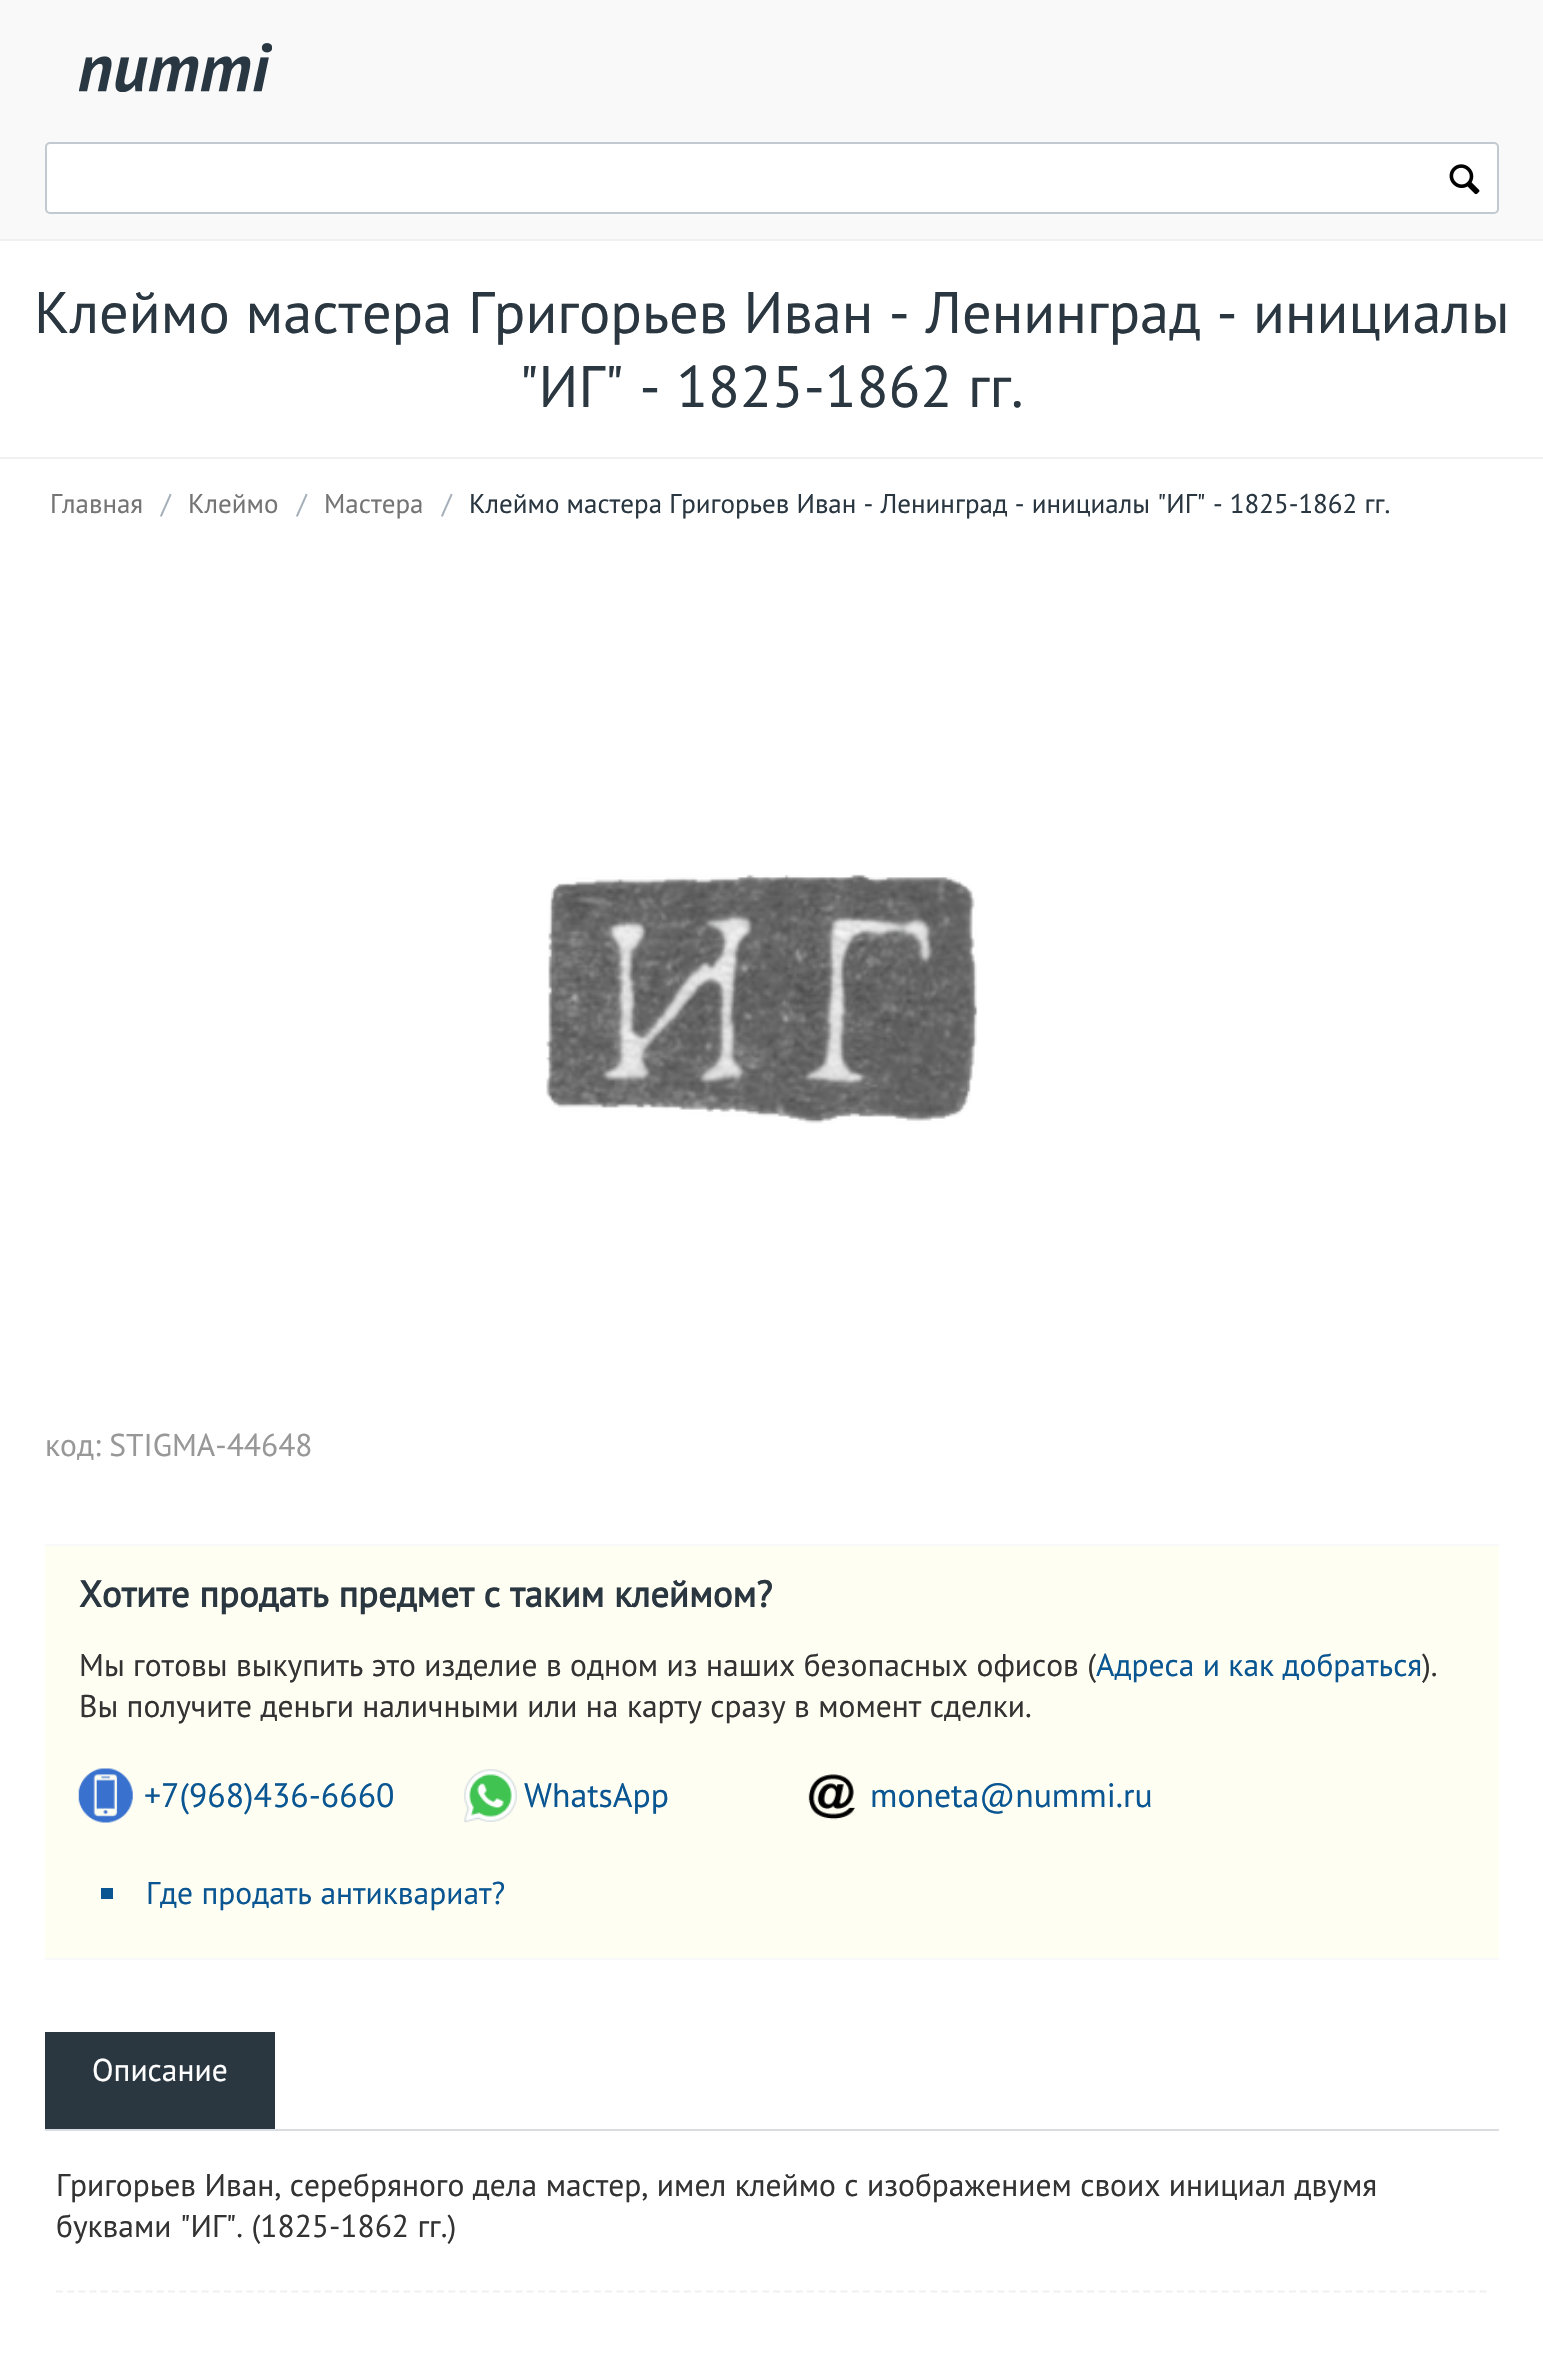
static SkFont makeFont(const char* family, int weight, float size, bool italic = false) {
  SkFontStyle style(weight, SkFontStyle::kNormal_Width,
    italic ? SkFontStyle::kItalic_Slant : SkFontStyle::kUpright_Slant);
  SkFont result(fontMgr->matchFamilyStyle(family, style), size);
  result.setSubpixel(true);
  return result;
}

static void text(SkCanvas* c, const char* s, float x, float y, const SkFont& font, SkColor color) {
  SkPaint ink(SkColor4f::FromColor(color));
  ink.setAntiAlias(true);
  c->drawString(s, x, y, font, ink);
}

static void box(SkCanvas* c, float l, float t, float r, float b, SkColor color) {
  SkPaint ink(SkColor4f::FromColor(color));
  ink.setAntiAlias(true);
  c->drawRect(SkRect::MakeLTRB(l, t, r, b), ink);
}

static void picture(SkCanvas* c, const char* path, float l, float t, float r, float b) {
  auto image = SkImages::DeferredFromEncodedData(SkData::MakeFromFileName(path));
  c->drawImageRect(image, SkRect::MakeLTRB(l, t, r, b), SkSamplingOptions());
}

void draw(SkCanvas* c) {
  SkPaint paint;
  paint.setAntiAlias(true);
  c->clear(0xffffffff);
  box(c, 0, 0, 1543, 239, 0xfff9f9f9);
  box(c, 0, 239, 1543, 241, 0xfff0f0f0);
  picture(c, "img_01.png", 79, 43, 272, 92);
  paint.setColor(0xffffffff);
  c->drawRoundRect(SkRect::MakeLTRB(46, 143, 1498, 213), 4, 4, paint);
  paint.setStyle(SkPaint::kStroke_Style);
  paint.setStrokeWidth(2);
  paint.setColor(0xffc2c9d0);
  c->drawRoundRect(SkRect::MakeLTRB(46, 143, 1498, 213), 4, 4, paint);
  picture(c, "img_02.png", 1449, 164, 1480, 195);
  box(c, 0, 457, 1543, 459, 0xfff0f0f0);
  SkFont face1 = makeFont("PT Sans", 400, 58.5f);
  text(c, "Клеймо мастера Григорьев Иван - Ленинград - инициалы", 34, 333, face1, 0xff2a3741);
  text(c, "\"ИГ\" - 1825-1862 гг.", 519, 407, face1, 0xff2a3741);
  SkFont face2 = makeFont("PT Sans", 400, 27);
  text(c, "Главная", 50, 513, face2, 0xff757575);
  text(c, "/", 161, 513, face2, 0xffa5afb9);
  text(c, "Клеймо", 188, 513, face2, 0xff757575);
  text(c, "/", 297, 513, face2, 0xffa5afb9);
  text(c, "Мастера", 324, 513, face2, 0xff757575);
  text(c, "/", 442, 513, face2, 0xffa5afb9);
  text(c, "Клеймо мастера Григорьев Иван - Ленинград - инициалы \"ИГ\" - 1825-1862 гг.", 469, 513, face2, 0xff2a3741);
  picture(c, "img_03.png", 546, 874, 978, 1124);
  SkFont face3 = makeFont("PT Sans", 400, 31.5f);
  text(c, "код: STIGMA-44648", 45, 1456, face3, 0xff989898);
  box(c, 45, 1546, 1499, 1958, 0xfffffef2);
  box(c, 45, 1544, 1499, 1546, 0xfff9f9f9);
  box(c, 45, 1958, 1499, 1960, 0xfff9f9f9);
  SkFont face4 = makeFont("PT Sans", 700, 36.8f);
  text(c, "Хотите продать предмет с таким клеймом?", 79, 1607, face4, 0xff2a3741);
  text(c, "Мы готовы выкупить это изделие в одном из наших безопасных офисов (", 79, 1676, face3, 0xff333333);
  text(c, "Адреса и как добраться", 1096, 1676, face3, 0xff0a5692);
  text(c, ").", 1422, 1676, face3, 0xff333333);
  text(c, "Вы получите деньги наличными или на карту сразу в момент сделки.", 79, 1717, face3, 0xff333333);
  picture(c, "img_04.png", 78, 1768, 133, 1823);
  SkFont face5 = makeFont("PT Sans", 400, 33.75f);
  text(c, "+7(968)436-6660", 144, 1807, face5, 0xff0a5692);
  picture(c, "img_05.png", 464, 1769, 517, 1823);
  text(c, "WhatsApp", 524, 1807, face5, 0xff0a5692);
  picture(c, "img_06.png", 808, 1774, 856, 1820);
  text(c, "moneta@nummi.ru", 870, 1807, face5, 0xff0a5692);
  box(c, 101, 1888, 113, 1899, 0xff0a5692);
  text(c, "Где продать антиквариат?", 146, 1904, face3, 0xff0a5692);
  box(c, 45, 2129, 1499, 2131, 0xffd9dde1);
  box(c, 45, 2032, 275, 2129, 0xff2a3741);
  text(c, "Описание", 92, 2081, face3, 0xffffffff);
  paint.setStrokeWidth(2.2f);
  paint.setColor(0xfff0f0f0);
  paint.setPathEffect(SkDashPathEffect::Make({{6.75f, 4.46f}}, 0));
  c->drawPath(SkPathBuilder().moveTo(56, 2291.5f).lineTo(1487, 2291.5f).detach(), paint);
  paint.setPathEffect(nullptr);
  text(c, "Григорьев Иван, серебряного дела мастер, имел клеймо с изображением своих инициал двумя", 56, 2196, face3, 0xff333333);
  text(c, "буквами \"ИГ\". (1825-1862 гг.)", 56, 2237, face3, 0xff333333);
}
